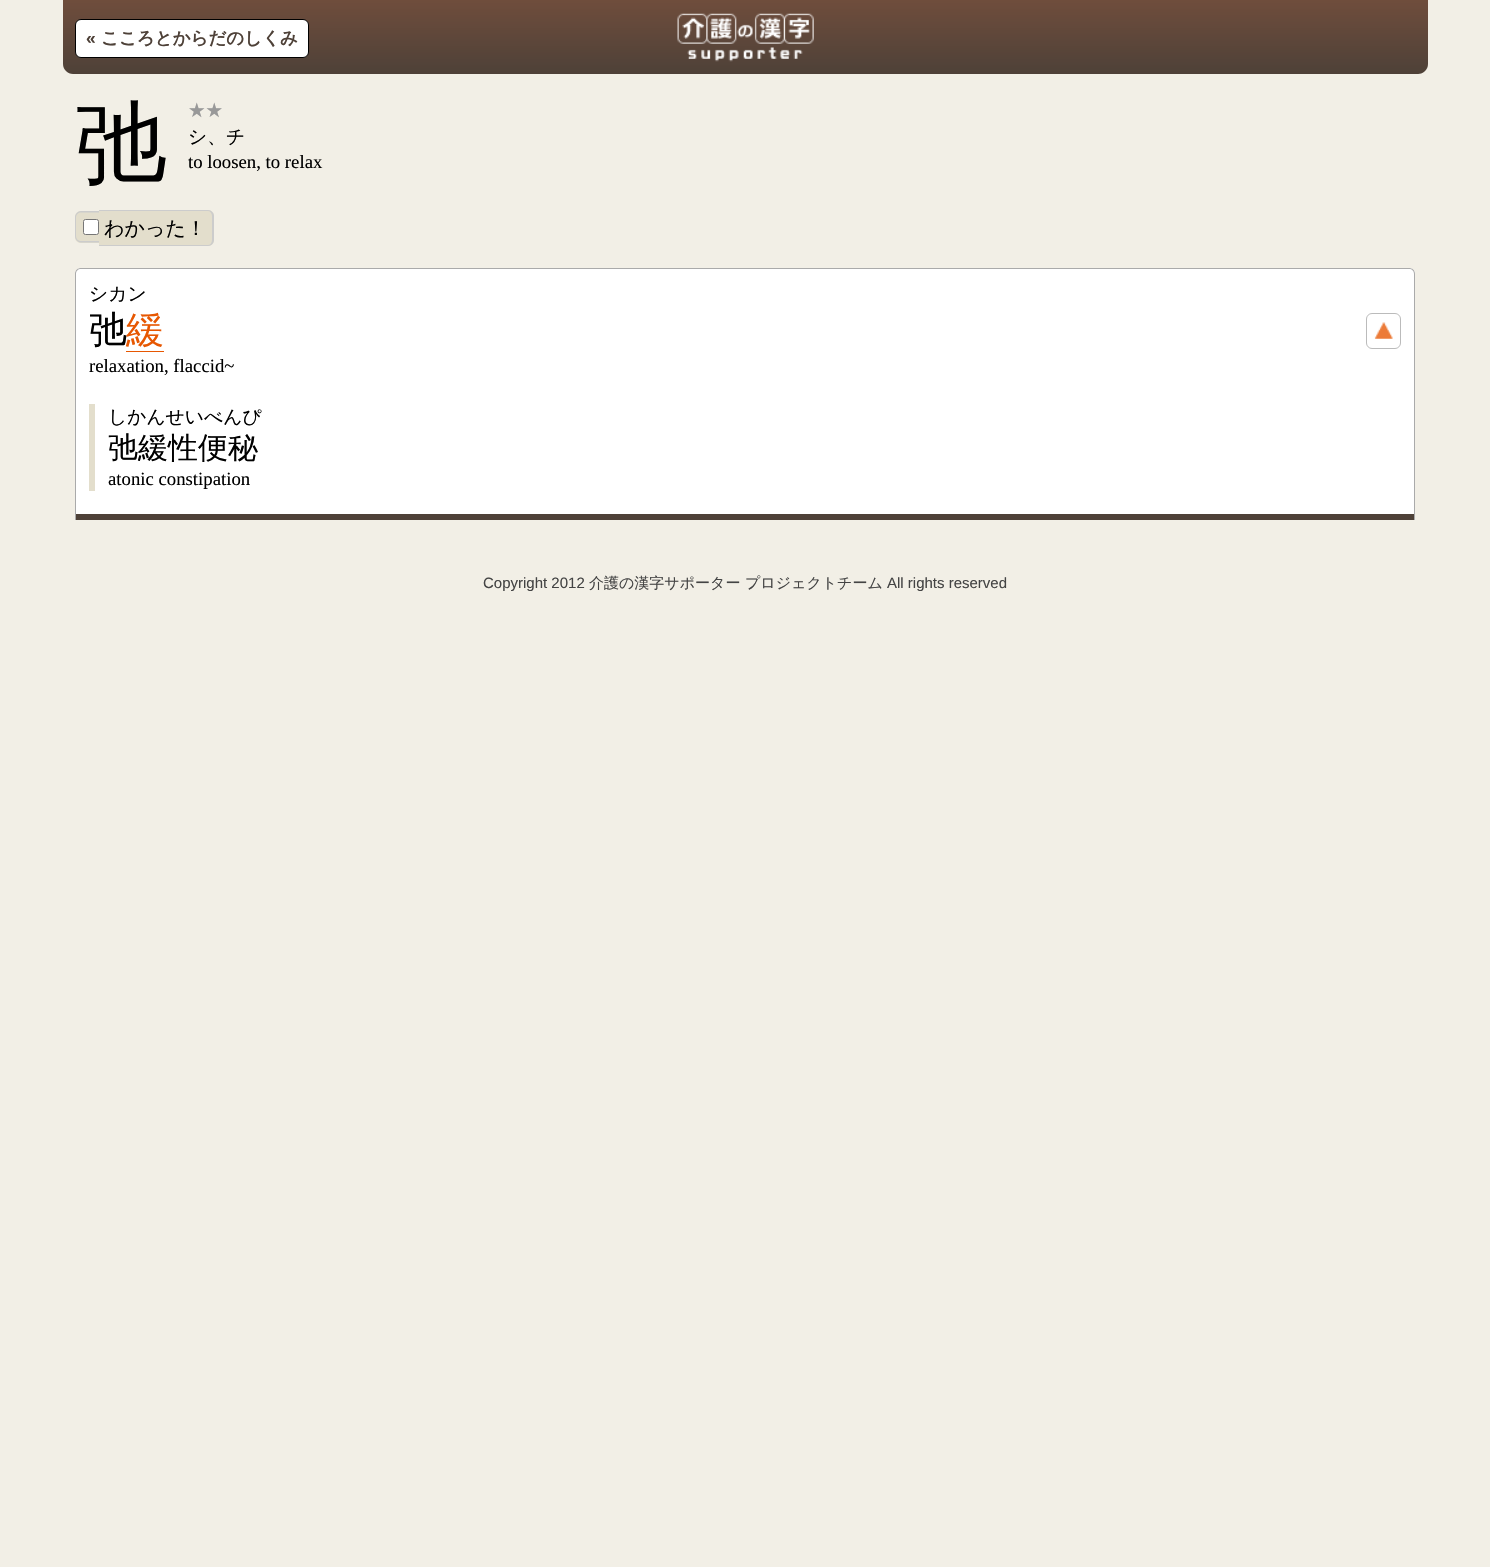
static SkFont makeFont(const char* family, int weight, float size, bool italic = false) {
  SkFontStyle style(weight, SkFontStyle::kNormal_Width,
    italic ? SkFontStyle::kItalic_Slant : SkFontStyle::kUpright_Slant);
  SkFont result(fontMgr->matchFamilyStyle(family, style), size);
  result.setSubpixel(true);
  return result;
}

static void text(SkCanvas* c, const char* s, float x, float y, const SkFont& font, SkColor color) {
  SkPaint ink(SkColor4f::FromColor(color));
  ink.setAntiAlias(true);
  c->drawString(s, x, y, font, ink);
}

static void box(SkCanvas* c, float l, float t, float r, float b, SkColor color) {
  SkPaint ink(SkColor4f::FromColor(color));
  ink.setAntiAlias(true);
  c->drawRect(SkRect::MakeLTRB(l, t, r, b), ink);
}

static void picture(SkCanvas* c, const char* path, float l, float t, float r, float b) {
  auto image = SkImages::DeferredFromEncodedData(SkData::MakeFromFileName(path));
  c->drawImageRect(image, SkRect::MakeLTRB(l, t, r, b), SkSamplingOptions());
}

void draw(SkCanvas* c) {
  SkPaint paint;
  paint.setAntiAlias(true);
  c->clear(0xfff2efe6);
  {
    const SkColor colors[] = {0xff6f4d3c, 0xff4e4138};
    const float stops[] = {0, 1};
    const SkPoint ends[] = {{745, 0}, {745, 74}};
    paint.setShader(SkGradientShader::MakeLinear(ends, colors, stops, 2, SkTileMode::kClamp));
    paint.setAlpha(255);
  }
  c->drawPath(SkPathBuilder().moveTo(63, 0).lineTo(1428, 0).lineTo(1428, 64).cubicTo(1428, 69.5f, 1423.5f, 74, 1418, 74).lineTo(73, 74).cubicTo(67.5f, 74, 63, 69.5f, 63, 64).close().detach(), paint);
  paint.setShader(nullptr);
  paint.setColor(0xffffffff);
  c->drawRoundRect(SkRect::MakeLTRB(75.5f, 19.5f, 308.5f, 57.5f), 5.5f, 5.5f, paint);
  paint.setStyle(SkPaint::kStroke_Style);
  paint.setStrokeWidth(1);
  paint.setColor(0xff000000);
  c->drawRoundRect(SkRect::MakeLTRB(75.5f, 19.5f, 308.5f, 57.5f), 5.5f, 5.5f, paint);
  SkFont face1 = makeFont("Liberation Sans", 700, 17.5f);
  text(c, "«", 86, 44, face1, 0xff4e4138);
  SkFont face2 = makeFont("WenQuanYi Zen Hei", 700, 17.5f);
  text(c, "こころとからだのしくみ", 101, 44, face2, 0xff4e4138);
  picture(c, "img_01.png", 677, 13, 814, 62);
  SkFont face3 = makeFont("WenQuanYi Zen Hei", 500, 92);
  text(c, "弛", 75, 176, face3, 0xff000000);
  SkFont face4 = makeFont("WenQuanYi Zen Hei", 500, 17.5f);
  text(c, "★★", 188, 116, face4, 0xff999999);
  SkFont face5 = makeFont("WenQuanYi Zen Hei", 500, 18.75f);
  text(c, "シ、チ", 188, 143, face5, 0xff000000);
  SkFont face6 = makeFont("Liberation Serif", 400, 18.75f);
  text(c, "to loosen, to relax", 188, 168, face6, 0xff000000);
  paint.setStyle(SkPaint::kFill_Style);
  paint.setColor(0xffe3decc);
  c->drawPath(SkPathBuilder().moveTo(81, 211).lineTo(99, 211).lineTo(99, 243).lineTo(81, 243).cubicTo(77.5f, 243, 75, 240.5f, 75, 237).lineTo(75, 217).cubicTo(75, 213.5f, 77.5f, 211, 81, 211).close().detach(), paint);
  paint.setColor(0xffcccccc);
  c->drawPath(SkPathBuilder(SkPathFillType::kEvenOdd).moveTo(81, 211).lineTo(99, 211).lineTo(99, 242.5f).lineTo(81, 242.5f).cubicTo(78, 242.5f, 75, 239.5f, 75, 236).lineTo(75, 217.5f).cubicTo(75, 214, 78, 211, 81, 211).close().moveTo(81, 212.5f).lineTo(99, 212.5f).lineTo(99, 241).lineTo(81, 241).cubicTo(78.5f, 241, 76, 239, 76, 236).lineTo(76, 217.5f).cubicTo(76, 214.5f, 78.5f, 212.5f, 81, 212.5f).close().detach(), paint);
  paint.setColor(0xffe3decc);
  c->drawPath(SkPathBuilder().moveTo(99, 210).lineTo(208, 210).cubicTo(211.5f, 210, 214, 212.5f, 214, 216).lineTo(214, 240).cubicTo(214, 243.5f, 211.5f, 246, 208, 246).lineTo(99, 246).close().detach(), paint);
  paint.setColor(0xffcccccc);
  c->drawPath(SkPathBuilder(SkPathFillType::kEvenOdd).moveTo(99, 210).lineTo(208, 210).cubicTo(211, 210, 214, 213, 214, 216).lineTo(214, 240).cubicTo(214, 243, 211, 246, 208, 246).lineTo(99, 246).close().moveTo(99, 211).lineTo(208, 211).cubicTo(210, 211, 212, 213, 212, 216).lineTo(212, 240).cubicTo(212, 243, 210, 245, 208, 245).lineTo(99, 245).close().detach(), paint);
  paint.setColor(0xffffffff);
  c->drawRoundRect(SkRect::MakeLTRB(83.5f, 219.5f, 98.5f, 234.5f), 2, 2, paint);
  paint.setStyle(SkPaint::kStroke_Style);
  paint.setColor(0xff767676);
  c->drawRoundRect(SkRect::MakeLTRB(83.5f, 219.5f, 98.5f, 234.5f), 2, 2, paint);
  SkFont face7 = makeFont("WenQuanYi Zen Hei", 500, 20);
  text(c, "わかった！", 104, 235, face7, 0xff000000);
  paint.setStyle(SkPaint::kFill_Style);
  paint.setColor(0xffffffff);
  c->drawPath(SkPathBuilder().moveTo(81, 268).lineTo(1409, 268).cubicTo(1412.5f, 268, 1415, 270.5f, 1415, 274).lineTo(1415, 520).lineTo(75, 520).lineTo(75, 274).cubicTo(75, 270.5f, 77.5f, 268, 81, 268).close().detach(), paint);
  paint.setColor(0xffaaaaaa);
  c->drawPath(SkPathBuilder(SkPathFillType::kEvenOdd).moveTo(81, 268).lineTo(1409, 268).cubicTo(1412, 268, 1415, 270, 1415, 274).lineTo(1415, 520).lineTo(75, 520).lineTo(75, 274).cubicTo(75, 270, 78, 268, 81, 268).close().moveTo(81, 269).lineTo(1409, 269).cubicTo(1412, 269, 1414, 271, 1414, 274).lineTo(1414, 520).lineTo(76, 520).lineTo(76, 274).cubicTo(76, 271, 78, 269, 81, 269).close().detach(), paint);
  text(c, "シカン", 89, 300, face5, 0xff000000);
  SkFont face8 = makeFont("WenQuanYi Zen Hei", 500, 38);
  text(c, "弛", 89, 343, face8, 0xff000000);
  text(c, "緩", 126, 343, face8, 0xffe75701);
  box(c, 126, 351, 164, 352, 0xffe75701);
  paint.setStyle(SkPaint::kStroke_Style);
  paint.setColor(0xffbbbbbb);
  c->drawRoundRect(SkRect::MakeLTRB(1366.5f, 313.5f, 1400.5f, 348.5f), 5.5f, 5.5f, paint);
  picture(c, "img_02.png", 1374, 322, 1393, 339);
  text(c, "relaxation, flaccid~", 89, 372, face6, 0xff000000);
  box(c, 76, 514, 1414, 520, 0xff4e4138);
  box(c, 89, 404, 95, 491, 0xffe3decc);
  text(c, "しかんせいべんぴ", 108, 423, face5, 0xff000000);
  SkFont face9 = makeFont("WenQuanYi Zen Hei", 500, 30);
  text(c, "弛緩性便秘", 108, 458, face9, 0xff000000);
  text(c, "atonic constipation", 108, 485, face6, 0xff000000);
  SkFont face10 = makeFont("Liberation Sans", 400, 15);
  text(c, "Copyright 2012", 483, 588, face10, 0xff444444);
  SkFont face11 = makeFont("WenQuanYi Zen Hei", 500, 15);
  text(c, "介護の漢字サポーター", 589, 588, face11, 0xff444444);
  text(c, "プロジェクトチーム", 745, 588, face11, 0xff444444);
  text(c, "All rights reserved", 887, 588, face10, 0xff444444);
}
